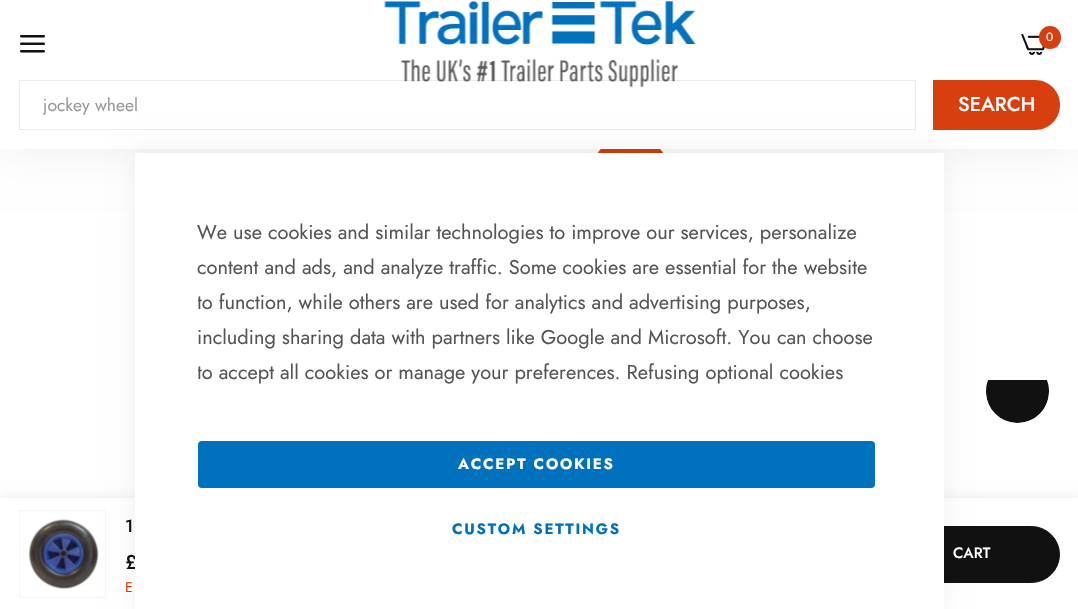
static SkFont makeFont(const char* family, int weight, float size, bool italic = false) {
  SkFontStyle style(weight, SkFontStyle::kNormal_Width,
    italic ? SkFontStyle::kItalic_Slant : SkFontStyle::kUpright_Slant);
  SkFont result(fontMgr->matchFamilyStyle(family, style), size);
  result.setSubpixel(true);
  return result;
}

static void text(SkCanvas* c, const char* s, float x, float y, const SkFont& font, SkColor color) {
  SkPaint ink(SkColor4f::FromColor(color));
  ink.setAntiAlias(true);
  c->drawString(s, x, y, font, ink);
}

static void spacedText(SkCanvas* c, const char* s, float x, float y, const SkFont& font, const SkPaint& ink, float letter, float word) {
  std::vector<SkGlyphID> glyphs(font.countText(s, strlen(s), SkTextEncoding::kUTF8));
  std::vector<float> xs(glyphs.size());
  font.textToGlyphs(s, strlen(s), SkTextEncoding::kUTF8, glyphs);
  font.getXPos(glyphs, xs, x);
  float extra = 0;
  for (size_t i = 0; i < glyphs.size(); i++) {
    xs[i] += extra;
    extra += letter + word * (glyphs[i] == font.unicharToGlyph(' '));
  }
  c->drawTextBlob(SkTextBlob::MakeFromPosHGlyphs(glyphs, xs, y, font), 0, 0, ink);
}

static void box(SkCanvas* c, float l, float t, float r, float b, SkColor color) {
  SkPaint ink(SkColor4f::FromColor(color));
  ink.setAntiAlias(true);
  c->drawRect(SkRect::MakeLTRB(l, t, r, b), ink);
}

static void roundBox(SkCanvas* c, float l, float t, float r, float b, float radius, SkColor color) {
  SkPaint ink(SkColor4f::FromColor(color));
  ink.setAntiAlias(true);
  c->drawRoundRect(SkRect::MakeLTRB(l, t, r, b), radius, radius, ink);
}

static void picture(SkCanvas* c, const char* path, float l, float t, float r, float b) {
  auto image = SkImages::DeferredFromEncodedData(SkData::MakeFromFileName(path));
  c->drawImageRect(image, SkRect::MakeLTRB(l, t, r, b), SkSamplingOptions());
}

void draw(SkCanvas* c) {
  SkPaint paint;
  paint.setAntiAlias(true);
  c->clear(0xffffffff);
  roundBox(c, 596, 145, 665, 175, 15, 0xffd73f0f);
  paint.setColor(0x0d000000);
  paint.setMaskFilter(SkMaskFilter::MakeBlur(kNormal_SkBlurStyle, 19));
  c->drawRect(SkRect::MakeLTRB(0, 6, 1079, 155), paint);
  paint.setMaskFilter(nullptr);
  box(c, 0, 0, 1078, 149, 0xffffffff);
  picture(c, "img_01.png", 20, 35, 45, 53);
  paint.setStyle(SkPaint::kStroke_Style);
  paint.setStrokeWidth(1);
  paint.setColor(0xffebebeb);
  c->drawRect(SkRect::MakeLTRB(19.5f, 80.5f, 915.5f, 129.5f), paint);
  picture(c, "img_02.png", 384, 1, 696, 88);
  picture(c, "img_03.png", 1021, 34, 1045, 55);
  roundBox(c, 1039, 26, 1061, 49, 11, 0xffd73f0f);
  SkFont face1 = makeFont("Jost", 400, 12);
  text(c, "0", 1046, 41, face1, 0xffffffff);
  c->save();
  c->clipRect(SkRect::MakeLTRB(43, 93, 803, 118));
  SkFont face2 = makeFont("Jost", 400, 17.5f);
  text(c, "jockey wheel", 43, 111, face2, 0xff999999);
  c->restore();
  paint.setStyle(SkPaint::kFill_Style);
  paint.setColor(0xffd73f0f);
  c->drawPath(SkPathBuilder().moveTo(933, 80).lineTo(1035, 80).cubicTo(1049, 80, 1060, 91, 1060, 105).cubicTo(1060, 119, 1049, 130, 1035, 130).lineTo(933, 130).close().detach(), paint);
  SkFont face3 = makeFont("Jost", 500, 20);
  text(c, "SEARCH", 958, 111, face3, 0xffffffff);
  c->save();
  c->clipPath(SkPathBuilder().moveTo(1017.5f, 360).cubicTo(1035, 360, 1049, 374, 1049, 391.5f).cubicTo(1049, 409, 1035, 423, 1017.5f, 423).cubicTo(1000, 423, 986, 409, 986, 391.5f).cubicTo(986, 374, 1000, 360, 1017.5f, 360).close().detach(), true);
  paint.setColor(0xff111111);
  c->drawPath(SkPathBuilder().moveTo(986, 380).lineTo(1049, 380).lineTo(1049, 391.5f).cubicTo(1049, 409, 1035, 423, 1017.5f, 423).cubicTo(1000, 423, 986, 409, 986, 391.5f).close().detach(), paint);
  c->restore();
  paint.setColor(0x17000000);
  paint.setMaskFilter(SkMaskFilter::MakeBlur(kNormal_SkBlurStyle, 6));
  c->drawRect(SkRect::MakeLTRB(0, 498, 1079, 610), paint);
  paint.setMaskFilter(nullptr);
  box(c, 0, 498, 1078, 609, 0xffffffff);
  picture(c, "img_04.png", 29, 519, 99, 589);
  paint.setStyle(SkPaint::kStroke_Style);
  paint.setColor(0xfff5f5f5);
  c->drawRect(SkRect::MakeLTRB(19.5f, 510.5f, 105.5f, 597.5f), paint);
  SkFont face4 = makeFont("Jost", 500, 17.5f);
  text(c, "1", 125, 532, face4, 0xff111111);
  text(c, "£", 125, 569, face3, 0xff111111);
  SkFont face5 = makeFont("Jost", 400, 14);
  text(c, "E", 125, 592, face5, 0xffd73f0f);
  paint.setStyle(SkPaint::kFill_Style);
  paint.setColor(0xff111111);
  c->drawRoundRect(SkRect::MakeLTRB(823.5f, 526.5f, 1059.5f, 582.5f), 28, 28, paint);
  paint.setStyle(SkPaint::kStroke_Style);
  c->drawRoundRect(SkRect::MakeLTRB(823.5f, 526.5f, 1059.5f, 582.5f), 28, 28, paint);
  SkFont face6 = makeFont("Jost", 500, 15);
  text(c, "CART", 953, 558, face6, 0xffffffff);
  paint.setStyle(SkPaint::kFill_Style);
  paint.setColor(0x0f000000);
  paint.setMaskFilter(SkMaskFilter::MakeBlur(kNormal_SkBlurStyle, 11));
  c->drawRect(SkRect::MakeLTRB(135, 150, 944, 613), paint);
  paint.setMaskFilter(nullptr);
  box(c, 135, 153, 944, 609, 0xffffffff);
  SkFont face7 = makeFont("Jost", 400, 20);
  text(c, "We use cookies and similar technologies to improve our services, personalize", 197, 239, face7, 0xff555555);
  text(c, "content and ads, and analyze traffic. Some cookies are essential for the website", 197, 274, face7, 0xff555555);
  c->save();
  c->clipRect(SkRect::MakeLTRB(198, 215, 881, 398));
  text(c, "to function, while others are used for analytics and advertising purposes,", 197, 309, face7, 0xff555555);
  c->restore();
  text(c, "including sharing data with partners like Google and Microsoft. You can choose", 197, 344, face7, 0xff555555);
  c->save();
  c->clipRect(SkRect::MakeLTRB(198, 215, 881, 398));
  text(c, "to accept all cookies or manage your preferences. Refusing optional cookies", 197, 379, face7, 0xff555555);
  c->restore();
  roundBox(c, 198, 441, 875, 488, 4, 0xff0071bc);
  SkFont face8 = makeFont("Jost", 700, 15);
  paint.setColor(0xffffffff);
  spacedText(c, "ACCEPT COOKIES", 458, 469, face8, paint, 1.75f, 0);
  paint.setColor(0xff0071bc);
  spacedText(c, "CUSTOM SETTINGS", 452, 534, face8, paint, 1.75f, 0);
}
